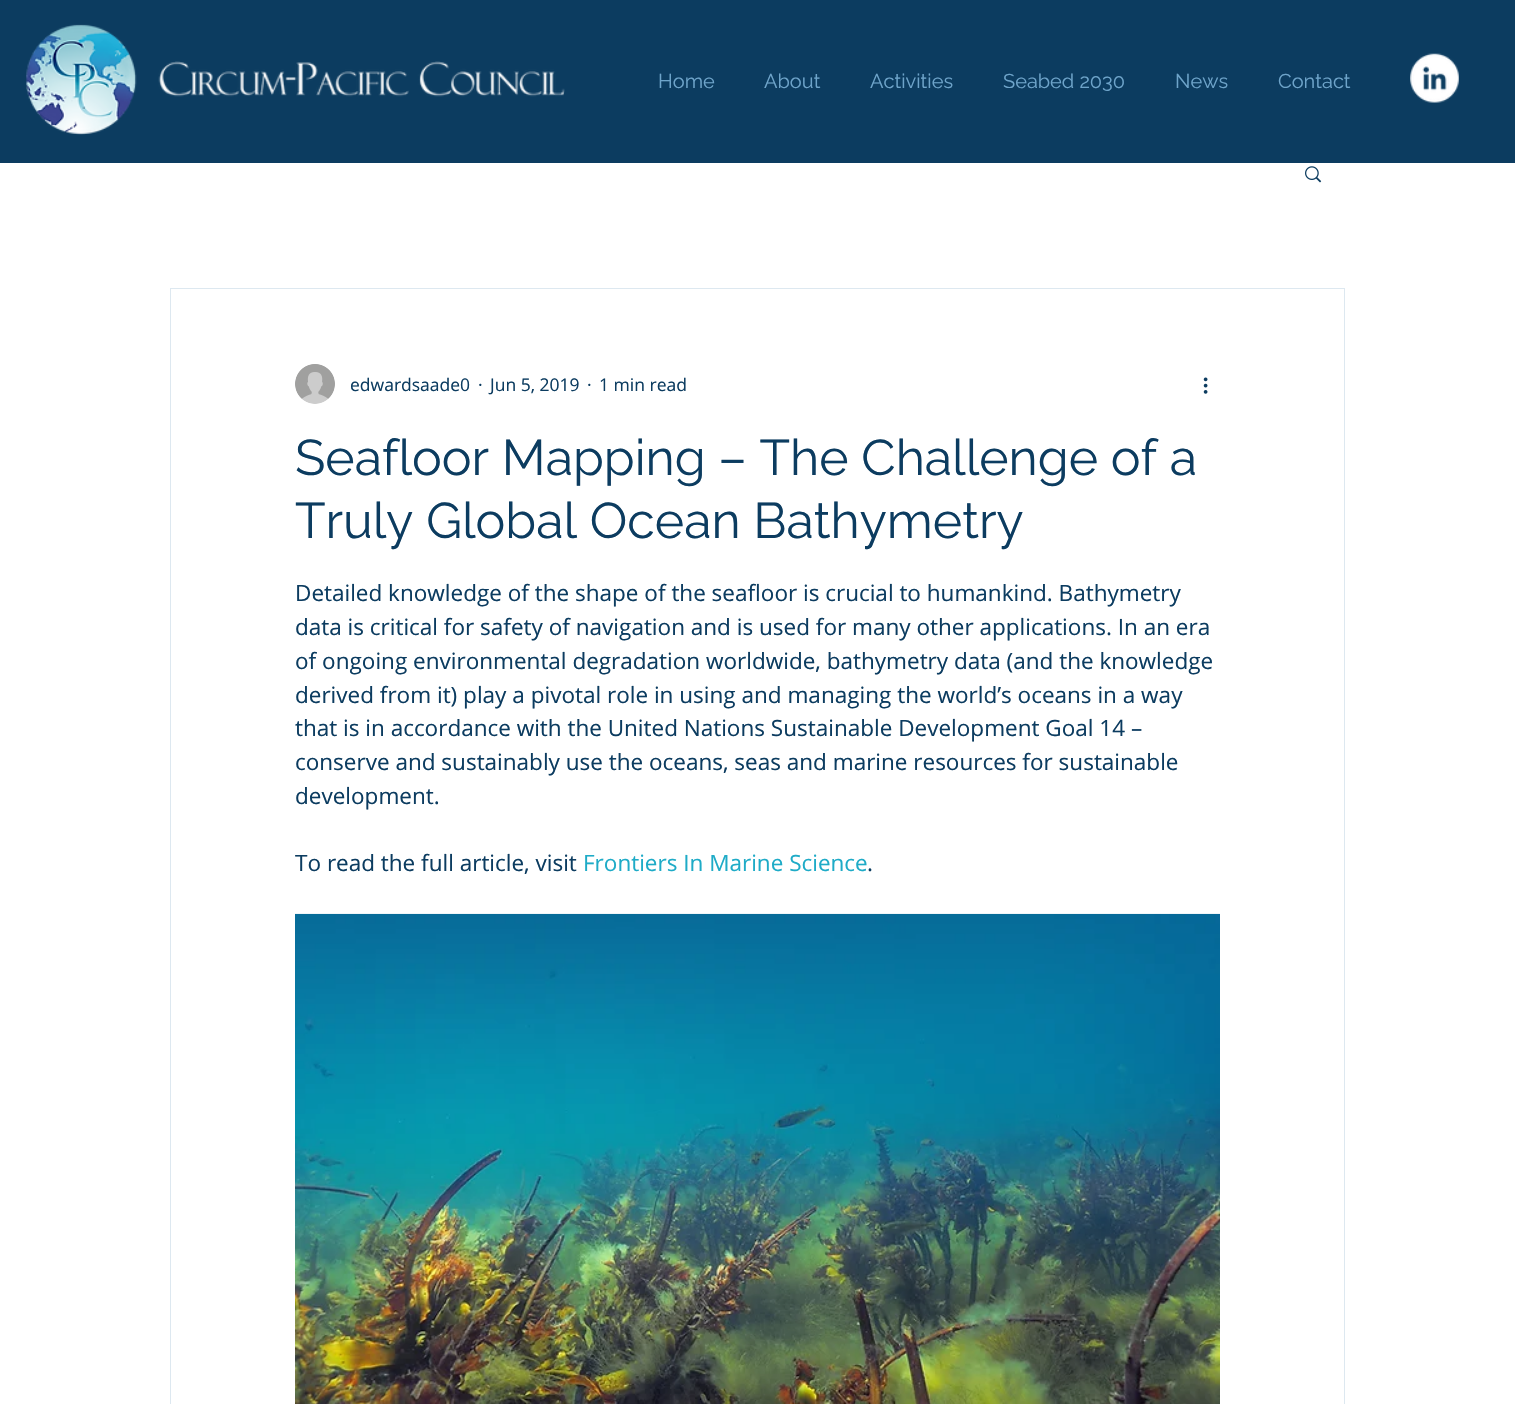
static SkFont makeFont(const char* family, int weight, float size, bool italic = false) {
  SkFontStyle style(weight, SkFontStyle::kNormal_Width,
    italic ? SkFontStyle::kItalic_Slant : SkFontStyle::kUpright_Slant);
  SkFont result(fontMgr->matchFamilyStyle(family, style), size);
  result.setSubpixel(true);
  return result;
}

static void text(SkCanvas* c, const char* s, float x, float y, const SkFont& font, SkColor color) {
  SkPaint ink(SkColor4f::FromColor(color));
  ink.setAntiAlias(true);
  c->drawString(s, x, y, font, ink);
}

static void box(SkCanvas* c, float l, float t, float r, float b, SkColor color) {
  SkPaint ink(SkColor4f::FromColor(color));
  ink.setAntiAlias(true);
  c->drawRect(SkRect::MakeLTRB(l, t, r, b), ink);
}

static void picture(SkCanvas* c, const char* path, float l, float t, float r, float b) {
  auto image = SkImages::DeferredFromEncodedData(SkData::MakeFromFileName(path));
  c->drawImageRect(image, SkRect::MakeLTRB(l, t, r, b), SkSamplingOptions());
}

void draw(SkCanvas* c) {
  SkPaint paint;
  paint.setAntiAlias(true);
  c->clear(0xffffffff);
  box(c, 0, 0, 1515, 163, 0xff0c3c60);
  picture(c, "img_01.png", 26, 24, 137, 135);
  picture(c, "img_02.png", 158, 61, 565, 97);
  SkFont face1 = makeFont("Raleway", 400, 20);
  text(c, "Home", 658, 88, face1, 0xff6ea4ca);
  text(c, "About", 764, 88, face1, 0xff6ea4ca);
  text(c, "Activities", 870, 88, face1, 0xff6ea4ca);
  text(c, "Seabed 2030", 1003, 88, face1, 0xff6ea4ca);
  text(c, "News", 1175, 88, face1, 0xff6ea4ca);
  text(c, "Contact", 1278, 88, face1, 0xff6ea4ca);
  picture(c, "img_03.png", 1410, 53, 1459, 103);
  picture(c, "img_04.png", 1305, 166, 1322, 183);
  paint.setStyle(SkPaint::kStroke_Style);
  paint.setStrokeWidth(1);
  paint.setColor(0xffdde8f0);
  c->drawRect(SkRect::MakeLTRB(170.5f, 288.5f, 1344.5f, 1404.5f), paint);
  picture(c, "img_05.png", 295, 364, 335, 404);
  SkFont face2 = makeFont("Open Sans", 400, 17.5f);
  text(c, "edwardsaade0", 350, 391, face2, 0xff0c3c60);
  text(c, "·", 478, 391, face2, 0xff0c3c60);
  text(c, "Jun 5, 2019", 490, 391, face2, 0xff0c3c60);
  text(c, "·", 587, 391, face2, 0xff0c3c60);
  text(c, "1 min read", 599, 391, face2, 0xff0c3c60);
  picture(c, "img_06.png", 1203, 377, 1208, 394);
  SkFont face3 = makeFont("Raleway", 400, 50);
  text(c, "Seafloor Mapping – The Challenge of a", 295, 475, face3, 0xff0c3c60);
  text(c, "Truly Global Ocean Bathymetry", 295, 538, face3, 0xff0c3c60);
  SkFont face4 = makeFont("Open Sans", 400, 22.5f);
  text(c, "Detailed knowledge of the shape of the seafloor is crucial to humankind. Bathymetry", 295, 601, face4, 0xff0c3c60);
  text(c, "data is critical for safety of navigation and is used for many other applications. In an era", 295, 635, face4, 0xff0c3c60);
  text(c, "of ongoing environmental degradation worldwide, bathymetry data (and the knowledge", 295, 669, face4, 0xff0c3c60);
  text(c, "derived from it) play a pivotal role in using and managing the world’s oceans in a way", 295, 703, face4, 0xff0c3c60);
  text(c, "that is in accordance with the United Nations Sustainable Development Goal 14 –", 295, 736, face4, 0xff0c3c60);
  text(c, "conserve and sustainably use the oceans, seas and marine resources for sustainable", 295, 770, face4, 0xff0c3c60);
  text(c, "development.", 295, 804, face4, 0xff0c3c60);
  text(c, "To read the full article, visit", 295, 871, face4, 0xff0c3c60);
  text(c, "Frontiers In Marine Science", 583, 871, face4, 0xff1eabc7);
  text(c, ".", 867, 871, face4, 0xff0c3c60);
  picture(c, "img_07.png", 295, 913, 1220, 1404);
}
